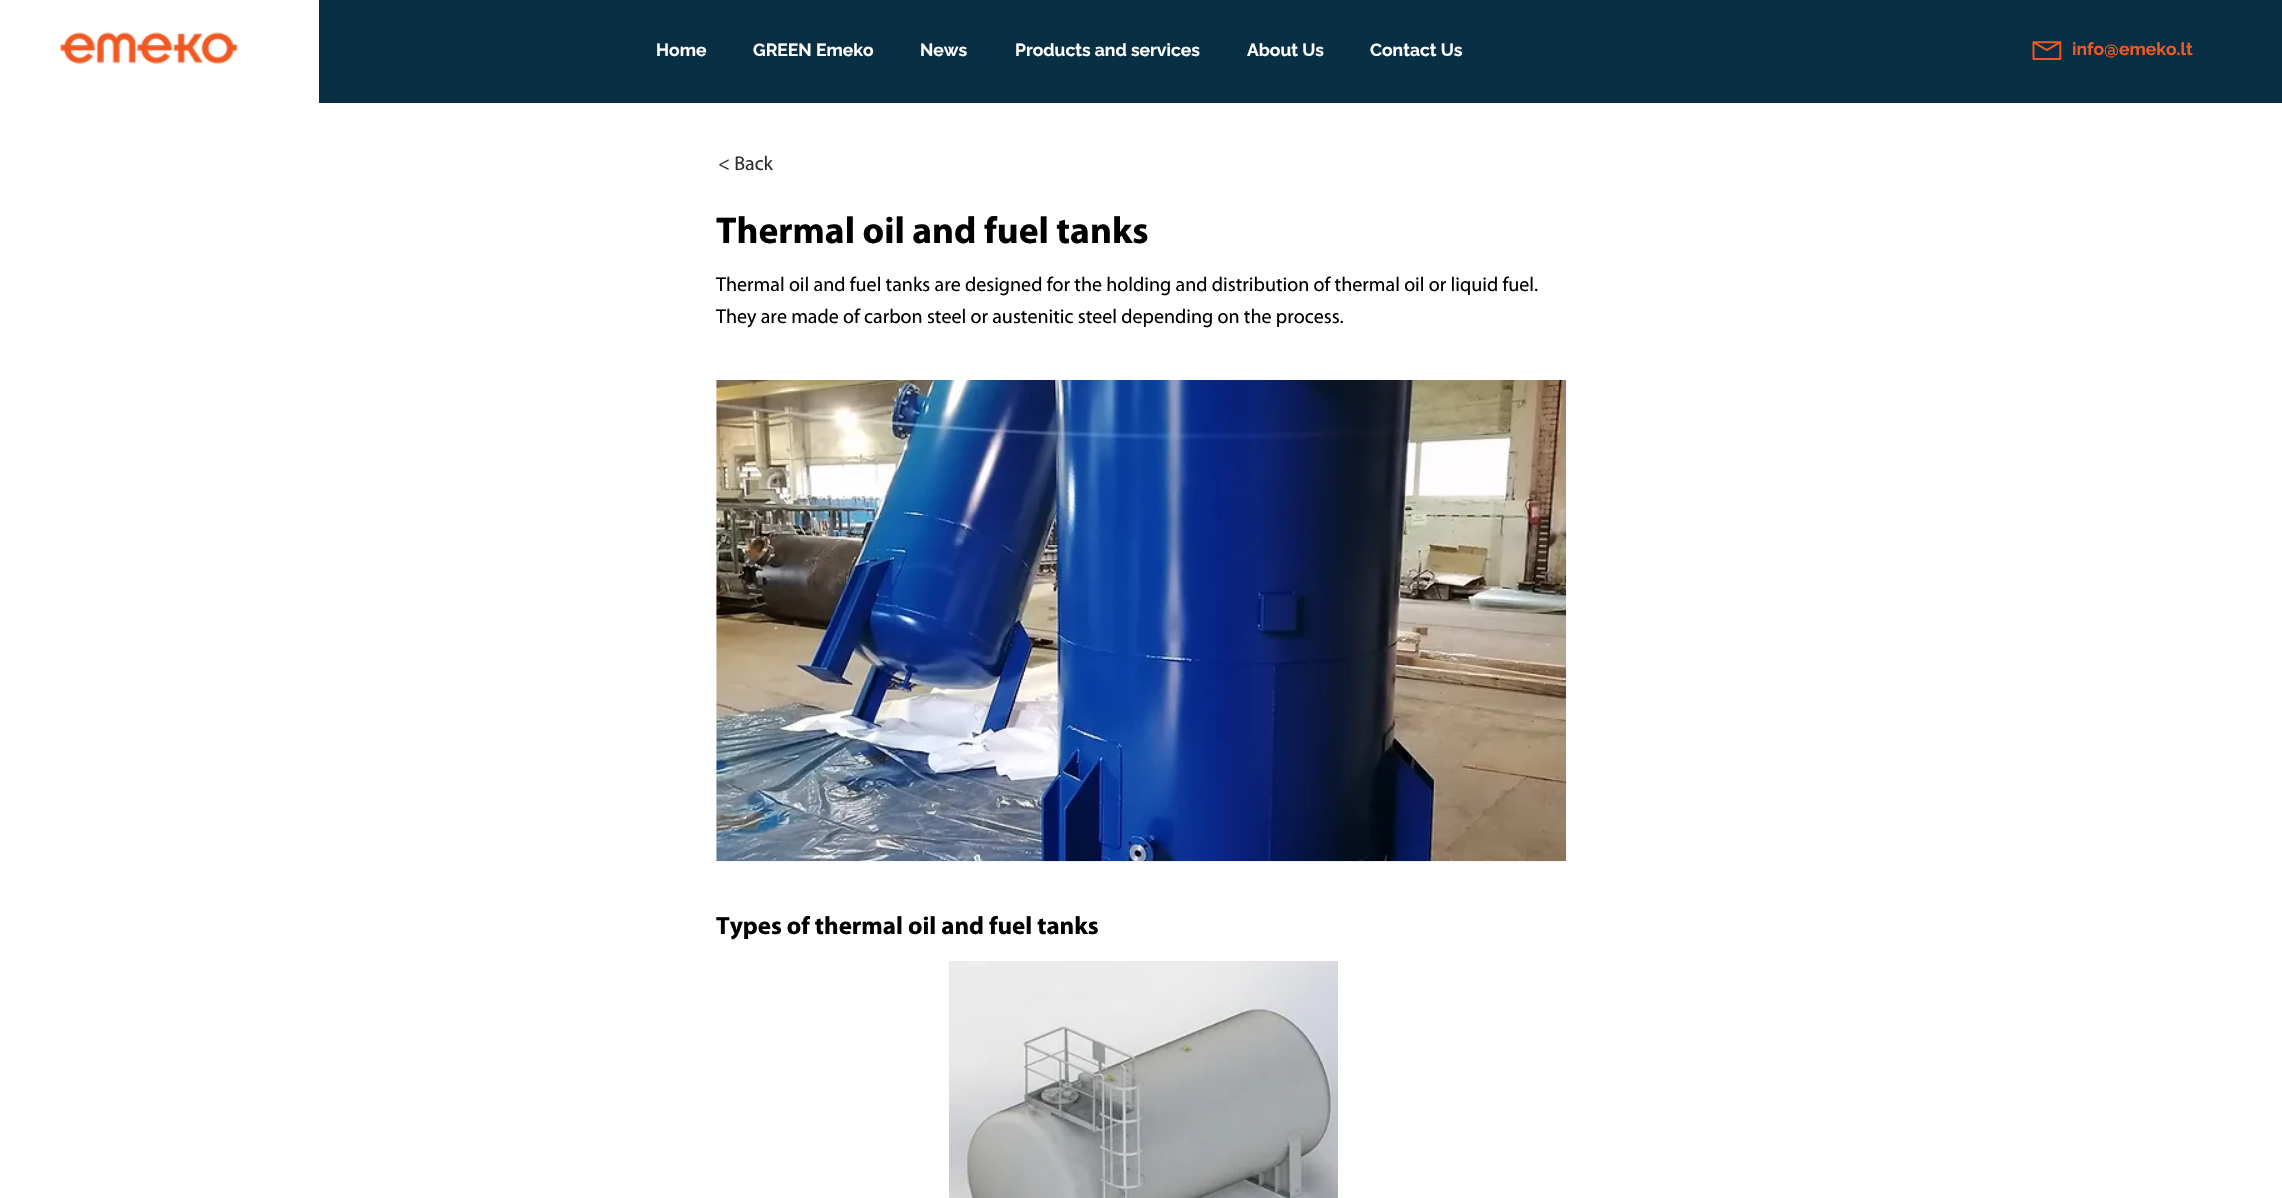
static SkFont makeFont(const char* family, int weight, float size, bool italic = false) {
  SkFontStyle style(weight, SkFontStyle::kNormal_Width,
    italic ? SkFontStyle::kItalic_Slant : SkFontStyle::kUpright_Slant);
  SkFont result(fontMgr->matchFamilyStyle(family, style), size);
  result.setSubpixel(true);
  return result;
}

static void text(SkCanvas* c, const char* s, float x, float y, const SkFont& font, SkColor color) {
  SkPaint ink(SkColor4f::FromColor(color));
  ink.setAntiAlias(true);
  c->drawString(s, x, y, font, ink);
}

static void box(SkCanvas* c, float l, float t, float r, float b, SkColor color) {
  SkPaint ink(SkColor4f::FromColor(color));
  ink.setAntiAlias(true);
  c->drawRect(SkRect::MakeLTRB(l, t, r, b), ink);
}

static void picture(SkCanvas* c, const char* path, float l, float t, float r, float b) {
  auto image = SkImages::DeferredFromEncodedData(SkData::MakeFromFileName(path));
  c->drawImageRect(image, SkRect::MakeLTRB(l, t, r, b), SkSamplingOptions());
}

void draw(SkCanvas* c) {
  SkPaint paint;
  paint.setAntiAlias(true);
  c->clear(0xffffffff);
  box(c, 319, 0, 2282, 103, 0xff0a2e44);
  picture(c, "img_01.png", 59, 32, 238, 64);
  SkFont face1 = makeFont("Raleway", 700, 17.5f);
  text(c, "Home", 656, 56, face1, 0xffffffff);
  text(c, "GREEN Emeko", 753, 56, face1, 0xffffffff);
  text(c, "News", 920, 56, face1, 0xffffffff);
  text(c, "Products and services", 1015, 56, face1, 0xffffffff);
  text(c, "About Us", 1247, 56, face1, 0xffffffff);
  text(c, "Contact Us", 1370, 56, face1, 0xffffffff);
  picture(c, "img_02.png", 2032, 41, 2062, 60);
  text(c, "info@emeko.lt", 2072, 55, face1, 0xfff15922);
  SkFont face2 = makeFont("Myriad", 400, 20);
  text(c, "< Back", 718, 170, face2, 0xff2f2e2e);
  SkFont face3 = makeFont("Myriad", 700, 37.5f);
  text(c, "Thermal oil and fuel tanks", 716, 243, face3, 0xff000000);
  text(c, "Thermal oil and fuel tanks are designed for the holding and distribution of thermal oil or liquid fuel.", 716, 291, face2, 0xff000000);
  text(c, "They are made of carbon steel or austenitic steel depending on the process.", 716, 323, face2, 0xff000000);
  picture(c, "img_03.png", 716, 380, 1567, 862);
  SkFont face4 = makeFont("Myriad", 700, 25);
  text(c, "Types of thermal oil and fuel tanks", 716, 934, face4, 0xff000000);
  picture(c, "img_04.png", 949, 961, 1338, 1198);
}
